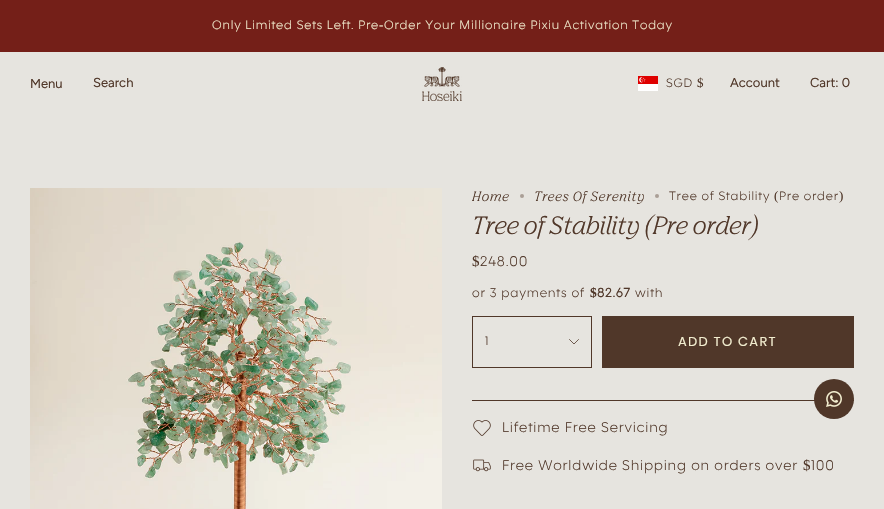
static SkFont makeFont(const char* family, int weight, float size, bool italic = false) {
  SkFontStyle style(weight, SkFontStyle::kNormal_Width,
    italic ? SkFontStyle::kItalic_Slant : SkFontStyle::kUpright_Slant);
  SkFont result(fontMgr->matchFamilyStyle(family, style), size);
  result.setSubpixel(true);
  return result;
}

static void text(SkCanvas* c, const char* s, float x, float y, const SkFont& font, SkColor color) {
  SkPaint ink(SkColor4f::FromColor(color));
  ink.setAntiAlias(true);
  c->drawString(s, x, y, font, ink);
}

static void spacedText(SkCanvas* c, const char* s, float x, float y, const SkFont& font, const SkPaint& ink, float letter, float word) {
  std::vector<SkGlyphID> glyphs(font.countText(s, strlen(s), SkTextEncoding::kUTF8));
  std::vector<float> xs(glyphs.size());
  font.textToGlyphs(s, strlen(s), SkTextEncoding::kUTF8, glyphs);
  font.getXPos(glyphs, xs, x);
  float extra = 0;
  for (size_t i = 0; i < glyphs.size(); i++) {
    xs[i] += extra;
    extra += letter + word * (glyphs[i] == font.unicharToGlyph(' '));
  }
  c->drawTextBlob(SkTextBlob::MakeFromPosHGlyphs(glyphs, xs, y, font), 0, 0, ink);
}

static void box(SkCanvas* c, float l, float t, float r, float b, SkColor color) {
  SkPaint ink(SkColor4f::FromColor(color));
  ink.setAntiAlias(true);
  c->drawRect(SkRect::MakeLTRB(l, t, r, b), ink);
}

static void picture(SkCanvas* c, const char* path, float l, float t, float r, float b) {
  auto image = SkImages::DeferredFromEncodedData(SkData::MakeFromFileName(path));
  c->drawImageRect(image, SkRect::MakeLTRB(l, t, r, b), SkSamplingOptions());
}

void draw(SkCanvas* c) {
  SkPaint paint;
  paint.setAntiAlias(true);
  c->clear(0xffe6e4df);
  box(c, 0, 0, 884, 52, 0xff741f18);
  SkFont face1 = makeFont("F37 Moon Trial", 300, 13);
  paint.setColor(0xfff2edcf);
  spacedText(c, "Only Limited Sets Left. Pre", 212, 29, face1, paint, 0.8f, 0);
  SkFont face2 = makeFont("Liberation Serif", 400, 13);
  spacedText(c, "-", 379, 29, face2, paint, 0.8f, 0);
  spacedText(c, "Order Your Millionaire Pixiu Activation Today", 384, 29, face1, paint, 0.8f, 0);
  SkFont face3 = makeFont("Figtree", 400, 13);
  text(c, "Menu", 30, 88, face3, 0xff503729);
  text(c, "Search", 93, 87, face3, 0xff503729);
  picture(c, "img_01.png", 422, 67, 462, 101);
  picture(c, "img_02.png", 638, 76, 658, 91);
  paint.setColor(0xff503729);
  spacedText(c, "SGD", 666, 87, face1, paint, 0.8f, 0);
  spacedText(c, "$", 697, 87, face2, paint, 0.8f, 0);
  text(c, "Account", 730, 87, face3, 0xff503729);
  text(c, "Cart: 0", 810, 87, face3, 0xff503729);
  picture(c, "img_03.png", 30, 188, 442, 509);
  SkFont face4 = makeFont("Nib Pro", 400, 13, true);
  spacedText(c, "Home", 472, 201, face4, paint, 0.8f, 0);
  paint.setColor(0xffaa9f96);
  c->drawCircle(522, 196, 2, paint);
  paint.setColor(0xff503729);
  spacedText(c, "Trees Of Serenity", 534, 201, face4, paint, 0.8f, 0);
  paint.setColor(0xffaa9f96);
  c->drawCircle(657, 196, 2, paint);
  paint.setColor(0xff503729);
  spacedText(c, "Tree of Stability", 669, 200, face1, paint, 0.8f, 0);
  spacedText(c, "(", 774, 200, face2, paint, 0.8f, 0);
  spacedText(c, "Pre order", 779, 200, face1, paint, 0.8f, 0);
  spacedText(c, ")", 839, 200, face2, paint, 0.8f, 0);
  SkFont face5 = makeFont("Nib Pro", 400, 24, true);
  text(c, "Tree of Stability (Pre order)", 472, 234, face5, 0xff503729);
  SkFont face6 = makeFont("Liberation Serif", 400, 15);
  spacedText(c, "$", 472, 266, face6, paint, 0.8f, 0);
  SkFont face7 = makeFont("F37 Moon Trial", 300, 15);
  spacedText(c, "248.00", 480, 266, face7, paint, 0.8f, 0);
  SkFont face8 = makeFont("F37 Moon Trial", 300, 13.5f);
  spacedText(c, "or 3 payments of", 472, 297, face8, paint, 0.8f, 0);
  SkFont face9 = makeFont("Liberation Serif", 700, 13.5f);
  spacedText(c, "$", 590, 297, face9, paint, 0.8f, 0);
  SkFont face10 = makeFont("F37 Moon Trial", 700, 13.5f);
  spacedText(c, "82.67", 597, 297, face10, paint, 0.8f, 0);
  spacedText(c, "with", 635, 297, face8, paint, 0.8f, 0);
  paint.setStyle(SkPaint::kStroke_Style);
  paint.setStrokeWidth(1);
  c->drawRect(SkRect::MakeLTRB(472.5f, 316.5f, 591.5f, 367.5f), paint);
  text(c, "1", 485, 345, face1, 0xff503729);
  paint.setStrokeWidth(0.8f);
  paint.setStrokeCap(SkPaint::kRound_Cap);
  paint.setStrokeJoin(SkPaint::kRound_Join);
  c->drawPath(SkPathBuilder().moveTo(569.5f, 339.5f).lineTo(574, 344).lineTo(578.5f, 339.5f).detach(), paint);
  box(c, 602, 316, 854, 368, 0xff503729);
  SkFont face11 = makeFont("Poppins", 400, 13);
  paint.setStyle(SkPaint::kFill_Style);
  paint.setColor(0xfff2edcf);
  spacedText(c, "ADD TO CART", 678, 346, face11, paint, 1.25f, 0);
  box(c, 472, 400, 854, 401, 0xff503729);
  picture(c, "img_04.png", 473, 420, 491, 436);
  paint.setColor(0xff503729);
  spacedText(c, "Lifetime Free Servicing", 502, 432, face7, paint, 0.8f, 0);
  picture(c, "img_05.png", 473, 459, 491, 472);
  spacedText(c, "Free Worldwide Shipping on orders over", 502, 470, face7, paint, 0.8f, 0);
  spacedText(c, "$", 803, 470, face6, paint, 0.8f, 0);
  spacedText(c, "100", 811, 470, face7, paint, 0.8f, 0);
  c->drawCircle(834, 399, 20, paint);
  picture(c, "img_06.png", 826, 391, 842, 407);
}
